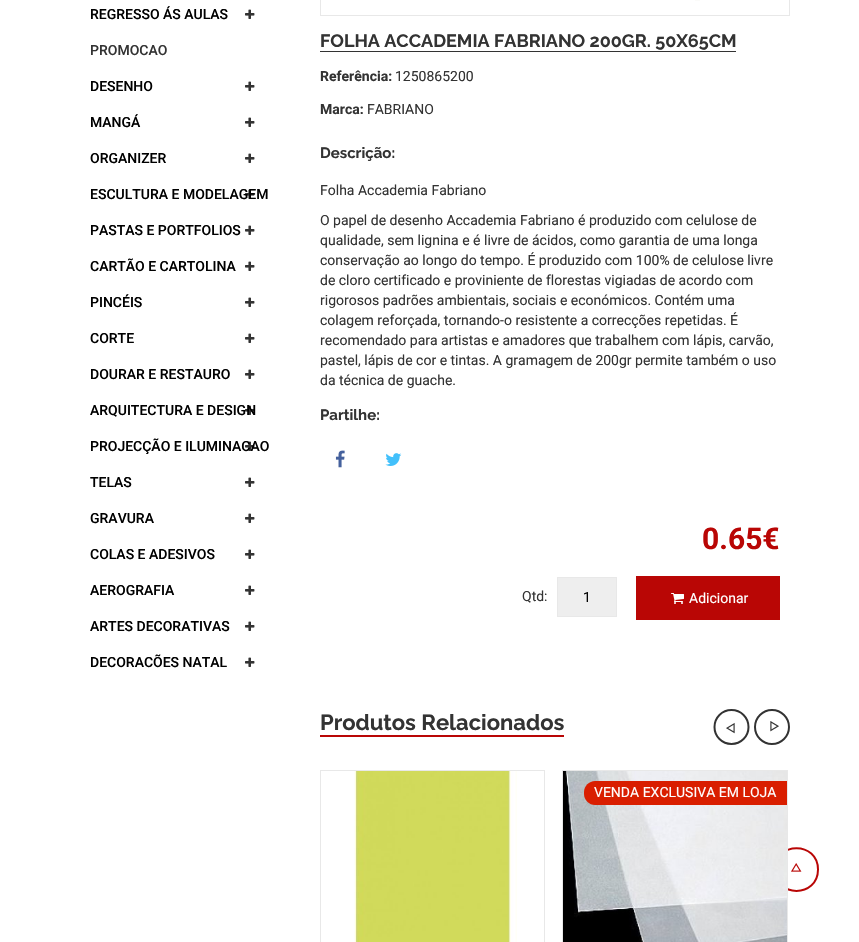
static SkFont makeFont(const char* family, int weight, float size, bool italic = false) {
  SkFontStyle style(weight, SkFontStyle::kNormal_Width,
    italic ? SkFontStyle::kItalic_Slant : SkFontStyle::kUpright_Slant);
  SkFont result(fontMgr->matchFamilyStyle(family, style), size);
  result.setSubpixel(true);
  return result;
}

static void text(SkCanvas* c, const char* s, float x, float y, const SkFont& font, SkColor color) {
  SkPaint ink(SkColor4f::FromColor(color));
  ink.setAntiAlias(true);
  c->drawString(s, x, y, font, ink);
}

static void box(SkCanvas* c, float l, float t, float r, float b, SkColor color) {
  SkPaint ink(SkColor4f::FromColor(color));
  ink.setAntiAlias(true);
  c->drawRect(SkRect::MakeLTRB(l, t, r, b), ink);
}

static void picture(SkCanvas* c, const char* path, float l, float t, float r, float b) {
  auto image = SkImages::DeferredFromEncodedData(SkData::MakeFromFileName(path));
  c->drawImageRect(image, SkRect::MakeLTRB(l, t, r, b), SkSamplingOptions());
}

void draw(SkCanvas* c) {
  SkPaint paint;
  paint.setAntiAlias(true);
  c->clear(0xffffffff);
  SkFont face1 = makeFont("Roboto", 500, 14);
  text(c, "REGRESSO ÁS AULAS", 90, 19, face1, 0xff000000);
  picture(c, "img_01.png", 245, 9, 255, 19);
  text(c, "PROMOCAO", 90, 55, face1, 0xff333333);
  text(c, "DESENHO", 90, 91, face1, 0xff000000);
  picture(c, "img_01.png", 245, 81, 255, 91);
  text(c, "MANGÁ", 90, 127, face1, 0xff000000);
  picture(c, "img_01.png", 245, 117, 255, 127);
  text(c, "ORGANIZER", 90, 163, face1, 0xff000000);
  picture(c, "img_01.png", 245, 153, 255, 163);
  picture(c, "img_01.png", 245, 189, 255, 199);
  text(c, "ESCULTURA E MODELAGEM", 90, 199, face1, 0xff000000);
  text(c, "PASTAS E PORTFOLIOS", 90, 235, face1, 0xff000000);
  picture(c, "img_01.png", 245, 225, 255, 235);
  text(c, "CARTÃO E CARTOLINA", 90, 271, face1, 0xff000000);
  picture(c, "img_01.png", 245, 261, 255, 271);
  text(c, "PINCÉIS", 90, 307, face1, 0xff000000);
  picture(c, "img_01.png", 245, 297, 255, 307);
  text(c, "CORTE", 90, 343, face1, 0xff000000);
  picture(c, "img_01.png", 245, 333, 255, 343);
  text(c, "DOURAR E RESTAURO", 90, 379, face1, 0xff000000);
  picture(c, "img_01.png", 245, 369, 255, 379);
  picture(c, "img_01.png", 245, 405, 255, 415);
  text(c, "ARQUITECTURA E DESIGN", 90, 415, face1, 0xff000000);
  picture(c, "img_01.png", 245, 441, 255, 451);
  text(c, "PROJECÇÃO E ILUMINACAO", 90, 451, face1, 0xff000000);
  text(c, "TELAS", 90, 487, face1, 0xff000000);
  picture(c, "img_01.png", 245, 477, 255, 487);
  text(c, "GRAVURA", 90, 523, face1, 0xff000000);
  picture(c, "img_01.png", 245, 513, 255, 523);
  text(c, "COLAS E ADESIVOS", 90, 559, face1, 0xff000000);
  picture(c, "img_01.png", 245, 549, 255, 559);
  text(c, "AEROGRAFIA", 90, 595, face1, 0xff000000);
  picture(c, "img_01.png", 245, 585, 255, 595);
  text(c, "ARTES DECORATIVAS", 90, 631, face1, 0xff000000);
  picture(c, "img_01.png", 245, 621, 255, 631);
  text(c, "DECORACÕES NATAL", 90, 667, face1, 0xff000000);
  picture(c, "img_01.png", 245, 657, 255, 667);
  paint.setStyle(SkPaint::kStroke_Style);
  paint.setStrokeWidth(1);
  paint.setColor(0xffe8e8e8);
  c->drawRect(SkRect::MakeLTRB(320.5f, -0.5f, 789.5f, 15.5f), paint);
  box(c, 695, 0, 700, 1, 0xfffbfbf9);
  box(c, 320, 51, 736, 52, 0xff333333);
  SkFont face2 = makeFont("Raleway", 700, 18);
  text(c, "FOLHA ACCADEMIA FABRIANO 200GR. 50X65CM", 320, 47, face2, 0xff333333);
  SkFont face3 = makeFont("Roboto", 700, 14);
  text(c, "Referência:", 320, 81, face3, 0xff333333);
  SkFont face4 = makeFont("Roboto", 400, 14);
  text(c, "1250865200", 395, 81, face4, 0xff333333);
  text(c, "Marca:", 320, 114, face3, 0xff333333);
  text(c, "FABRIANO", 367, 114, face4, 0xff333333);
  SkFont face5 = makeFont("Raleway", 700, 15);
  text(c, "Descrição:", 320, 158, face5, 0xff333333);
  text(c, "Folha Accademia Fabriano", 320, 195, face4, 0xff333333);
  text(c, "O papel de desenho Accademia Fabriano é produzido com celulose de", 320, 225, face4, 0xff333333);
  text(c, "qualidade, sem lignina e é livre de ácidos, como garantia de uma longa", 320, 245, face4, 0xff333333);
  text(c, "conservação ao longo do tempo. É produzido com 100% de celulose livre", 320, 265, face4, 0xff333333);
  text(c, "de cloro certificado e proviniente de florestas vigiadas de acordo com", 320, 285, face4, 0xff333333);
  text(c, "rigorosos padrões ambientais, sociais e económicos. Contém uma", 320, 305, face4, 0xff333333);
  text(c, "colagem reforçada, tornando-o resistente a correcções repetidas. É", 320, 325, face4, 0xff333333);
  text(c, "recomendado para artistas e amadores que trabalhem com lápis, carvão,", 320, 345, face4, 0xff333333);
  text(c, "pastel, lápis de cor e tintas. A gramagem de 200gr permite também o uso", 320, 365, face4, 0xff333333);
  text(c, "da técnica de guache.", 320, 385, face4, 0xff333333);
  text(c, "Partilhe:", 320, 420, face5, 0xff333333);
  picture(c, "img_02.png", 335, 450, 345, 468);
  picture(c, "img_03.png", 385, 453, 402, 466);
  SkFont face6 = makeFont("Roboto", 700, 30);
  text(c, "0.65€", 702, 549, face6, 0xffb90605);
  text(c, "Qtd:", 522, 601, face4, 0xff333333);
  paint.setStyle(SkPaint::kFill_Style);
  paint.setColor(0xffeeeeee);
  c->drawRect(SkRect::MakeLTRB(557.5f, 577.5f, 616.5f, 616.5f), paint);
  paint.setStyle(SkPaint::kStroke_Style);
  paint.setColor(0xffe8e8e8);
  c->drawRect(SkRect::MakeLTRB(557.5f, 577.5f, 616.5f, 616.5f), paint);
  text(c, "1", 583, 602, face4, 0xff000000);
  box(c, 636, 576, 780, 620, 0xffb90605);
  picture(c, "img_04.png", 671, 593, 684, 604);
  text(c, "Adicionar", 689, 603, face4, 0xffffffff);
  SkFont face7 = makeFont("Raleway", 700, 22);
  text(c, "Produtos Relacionados", 320, 730, face7, 0xff333333);
  box(c, 320, 735, 564, 737, 0xffb90605);
  paint.setStrokeWidth(2);
  paint.setColor(0xff333333);
  c->drawPath(SkPathBuilder().moveTo(731.5f, 744).cubicTo(722, 744, 714.5f, 736.5f, 714.5f, 727).cubicTo(714.5f, 717.5f, 722, 710, 731.5f, 710).cubicTo(741, 710, 748.5f, 717.5f, 748.5f, 727).cubicTo(748.5f, 736.5f, 741, 744, 731.5f, 744).close().detach(), paint);
  picture(c, "img_05.png", 726, 722, 735, 734);
  c->drawCircle(772, 727, 17, paint);
  picture(c, "img_06.png", 770, 721, 779, 732);
  paint.setStrokeWidth(1);
  paint.setColor(0xffe8e8e8);
  c->drawRect(SkRect::MakeLTRB(320.5f, 770.5f, 544.5f, 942.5f), paint);
  picture(c, "img_07.png", 354, 771, 517, 942);
  paint.setStrokeWidth(2);
  paint.setColor(0xffb90605);
  c->drawPath(SkPathBuilder().moveTo(775, 869.5f).cubicTo(775, 841, 818, 841, 818, 869.5f).cubicTo(818, 898, 775, 898, 775, 869.5f).close().detach(), paint);
  paint.setStrokeWidth(1);
  paint.setColor(0xffe8e8e8);
  c->drawRect(SkRect::MakeLTRB(562.5f, 770.5f, 787.5f, 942.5f), paint);
  picture(c, "img_08.png", 563, 771, 787, 942);
  paint.setStyle(SkPaint::kFill_Style);
  paint.setColor(0xffd91e00);
  c->drawPath(SkPathBuilder().moveTo(595, 781).lineTo(787, 781).lineTo(787, 805).lineTo(595, 805).cubicTo(589, 805, 584, 800, 584, 794).lineTo(584, 792).cubicTo(584, 786, 589, 781, 595, 781).close().detach(), paint);
  text(c, "VENDA EXCLUSIVA EM LOJA", 594, 797, face4, 0xffffffff);
  picture(c, "img_09.png", 791, 863, 802, 872);
}
